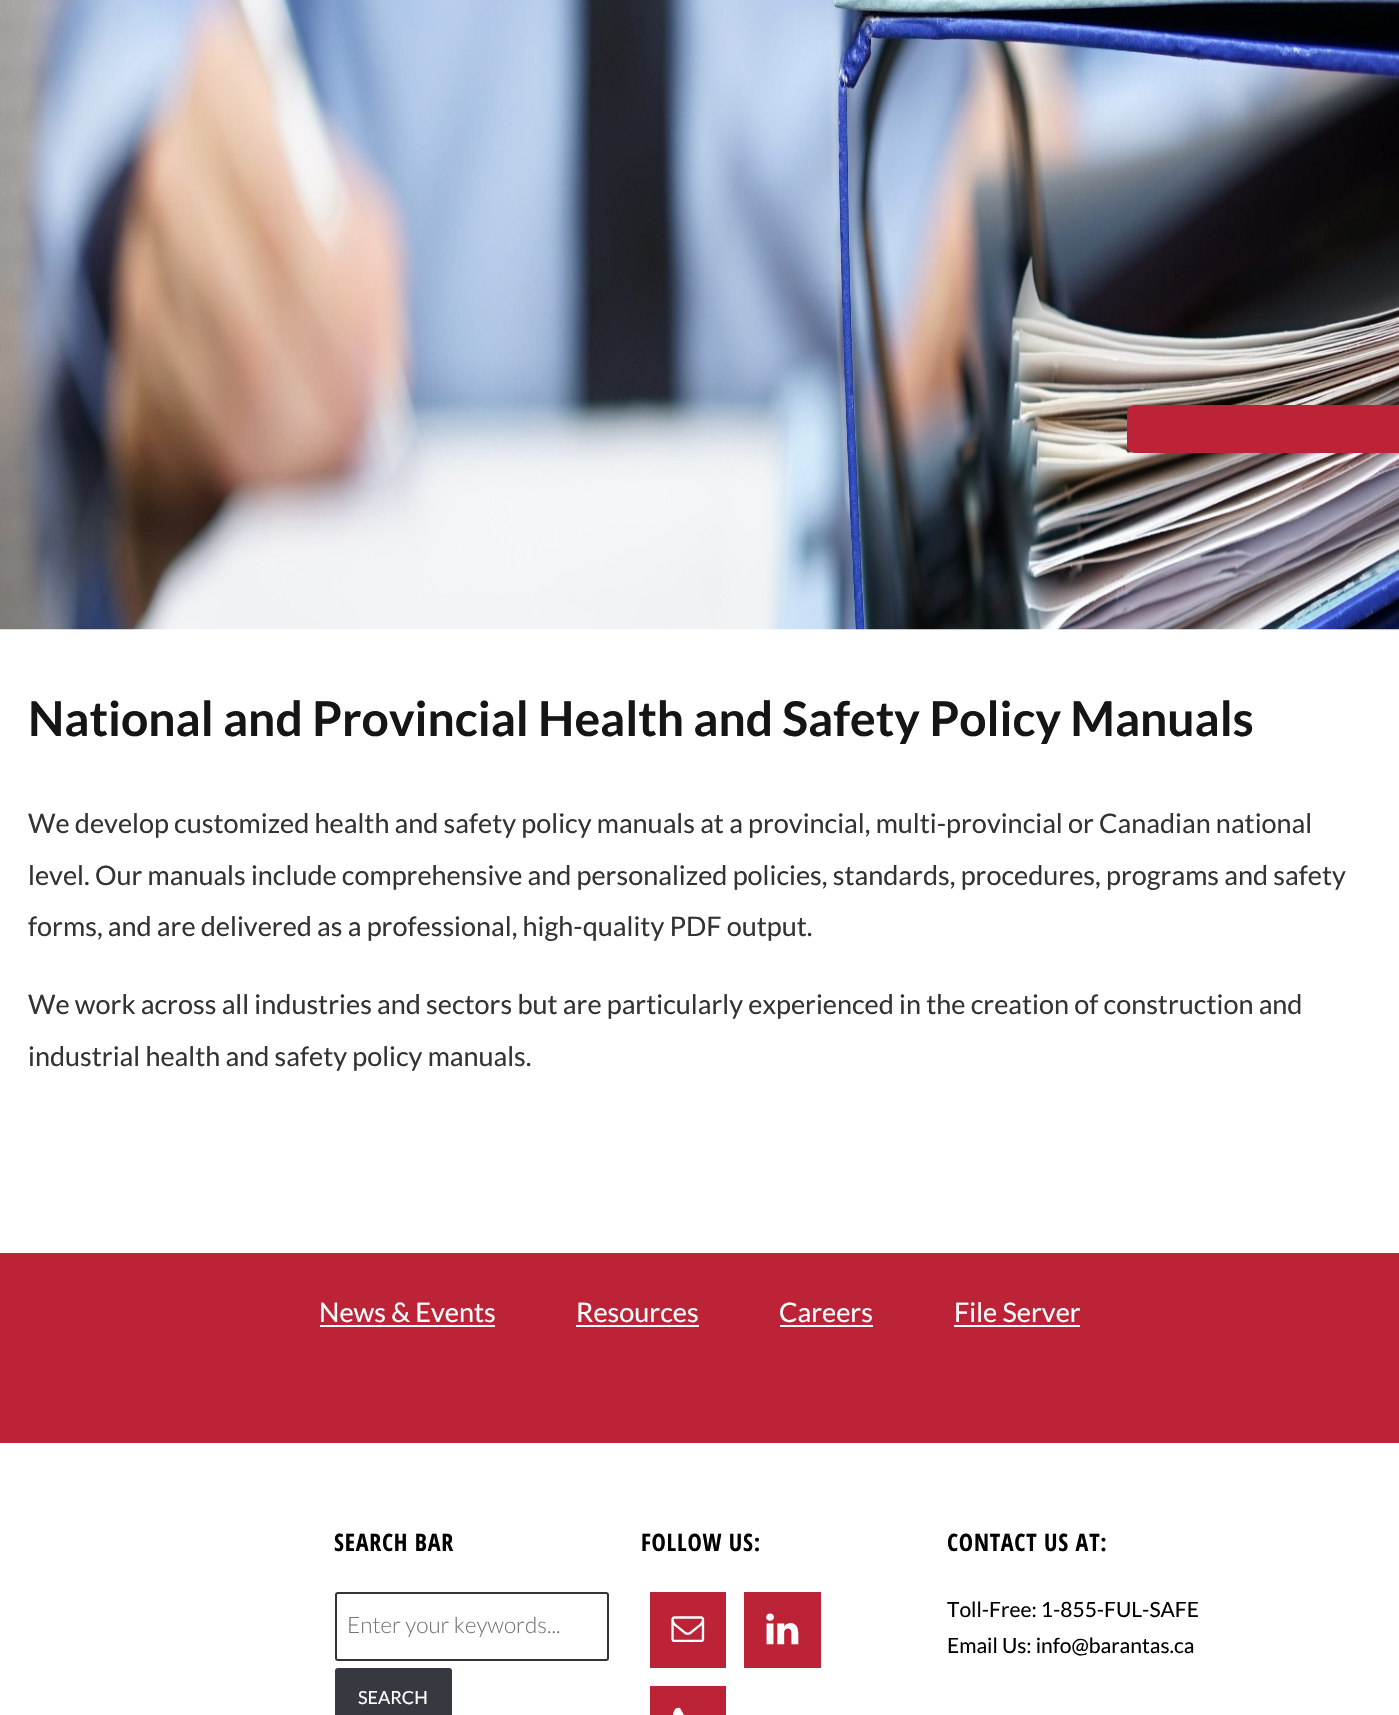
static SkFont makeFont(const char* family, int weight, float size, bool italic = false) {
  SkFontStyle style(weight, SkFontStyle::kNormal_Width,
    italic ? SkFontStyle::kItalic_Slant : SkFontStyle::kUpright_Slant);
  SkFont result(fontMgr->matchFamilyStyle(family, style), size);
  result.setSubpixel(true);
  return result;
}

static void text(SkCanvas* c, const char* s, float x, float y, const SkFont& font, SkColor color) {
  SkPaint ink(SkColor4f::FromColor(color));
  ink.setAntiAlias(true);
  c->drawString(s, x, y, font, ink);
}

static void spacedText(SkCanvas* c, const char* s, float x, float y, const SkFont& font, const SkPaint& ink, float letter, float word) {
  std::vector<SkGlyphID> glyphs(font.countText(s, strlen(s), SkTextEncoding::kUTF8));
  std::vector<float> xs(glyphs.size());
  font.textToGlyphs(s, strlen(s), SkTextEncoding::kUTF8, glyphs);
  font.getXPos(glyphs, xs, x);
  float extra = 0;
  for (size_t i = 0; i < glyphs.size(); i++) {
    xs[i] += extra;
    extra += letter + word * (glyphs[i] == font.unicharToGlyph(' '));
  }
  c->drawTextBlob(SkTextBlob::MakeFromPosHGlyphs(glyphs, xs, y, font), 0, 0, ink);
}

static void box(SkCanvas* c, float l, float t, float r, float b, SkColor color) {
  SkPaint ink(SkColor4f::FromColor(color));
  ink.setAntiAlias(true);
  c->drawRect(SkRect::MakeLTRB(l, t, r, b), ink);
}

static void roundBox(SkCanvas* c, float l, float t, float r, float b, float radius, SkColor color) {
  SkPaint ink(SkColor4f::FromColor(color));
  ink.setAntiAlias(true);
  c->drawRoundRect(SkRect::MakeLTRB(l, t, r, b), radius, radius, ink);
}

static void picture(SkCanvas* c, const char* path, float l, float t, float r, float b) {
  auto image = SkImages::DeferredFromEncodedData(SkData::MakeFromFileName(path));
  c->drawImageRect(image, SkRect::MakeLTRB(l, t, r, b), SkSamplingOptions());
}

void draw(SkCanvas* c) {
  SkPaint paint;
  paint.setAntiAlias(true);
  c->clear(0xffffffff);
  picture(c, "img_01.png", 0, 0, 1399, 630);
  roundBox(c, 1127, 405, 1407, 453, 8, 0xffbd2336);
  SkFont face1 = makeFont("Lato", 700, 48);
  text(c, "National and Provincial Health and Safety Policy Manuals", 28, 736, face1, 0xff151515);
  SkFont face2 = makeFont("Lato", 400, 27);
  text(c, "We develop customized health and safety policy manuals at a provincial, multi-provincial or Canadian national", 28, 833, face2, 0xff333333);
  text(c, "level. Our manuals include comprehensive and personalized policies, standards, procedures, programs and safety", 28, 885, face2, 0xff333333);
  text(c, "forms, and are delivered as a professional, high-quality PDF output.", 28, 936, face2, 0xff333333);
  text(c, "We work across all industries and sectors but are particularly experienced in the creation of construction and", 28, 1014, face2, 0xff333333);
  text(c, "industrial health and safety policy manuals.", 28, 1066, face2, 0xff333333);
  box(c, 0, 1253, 1399, 1443, 0xffbd2336);
  text(c, "News & Events", 319, 1322, face2, 0xffffffff);
  box(c, 320, 1325, 495, 1327, 0xffffffff);
  text(c, "Resources", 576, 1322, face2, 0xffffffff);
  box(c, 576, 1325, 699, 1327, 0xffffffff);
  text(c, "Careers", 779, 1322, face2, 0xffffffff);
  box(c, 780, 1325, 873, 1327, 0xffffffff);
  text(c, "File Server", 954, 1322, face2, 0xffffffff);
  box(c, 954, 1325, 1080, 1327, 0xffffffff);
  SkFont face3 = makeFont("Open Sans Condensed", 700, 24);
  paint.setColor(0xff000000);
  spacedText(c, "SEARCH BAR", 334, 1551, face3, paint, 0.75f, 0);
  paint.setStyle(SkPaint::kStroke_Style);
  paint.setStrokeWidth(2);
  paint.setColor(0xff333333);
  c->drawRoundRect(SkRect::MakeLTRB(336, 1593, 608, 1660), 2, 2, paint);
  SkFont face4 = makeFont("Lato", 300, 22.5f);
  text(c, "Enter your keywords...", 347, 1633, face4, 0xff757575);
  roundBox(c, 335, 1668, 452, 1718, 3, 0xff363940);
  SkFont face5 = makeFont("Lato", 400, 18);
  text(c, "SEARCH", 358, 1704, face5, 0xffffffff);
  paint.setStyle(SkPaint::kFill_Style);
  paint.setColor(0xff000000);
  spacedText(c, "FOLLOW US:", 641, 1551, face3, paint, 0.75f, 0);
  box(c, 650, 1592, 726, 1668, 0xffbd2336);
  picture(c, "img_02.png", 671, 1616, 705, 1642);
  box(c, 744, 1592, 821, 1668, 0xffbd2336);
  picture(c, "img_03.png", 766, 1613, 799, 1645);
  box(c, 650, 1686, 726, 1715, 0xffbd2336);
  picture(c, "img_04.png", 673, 1707, 684, 1715);
  spacedText(c, "CONTACT US AT:", 947, 1551, face3, paint, 0.75f, 0);
  SkFont face6 = makeFont("Lato", 400, 21);
  text(c, "Toll-Free: 1-855-FUL-SAFE", 947, 1617, face6, 0xff000000);
  text(c, "Email Us: info@barantas.ca", 947, 1653, face6, 0xff000000);
}
